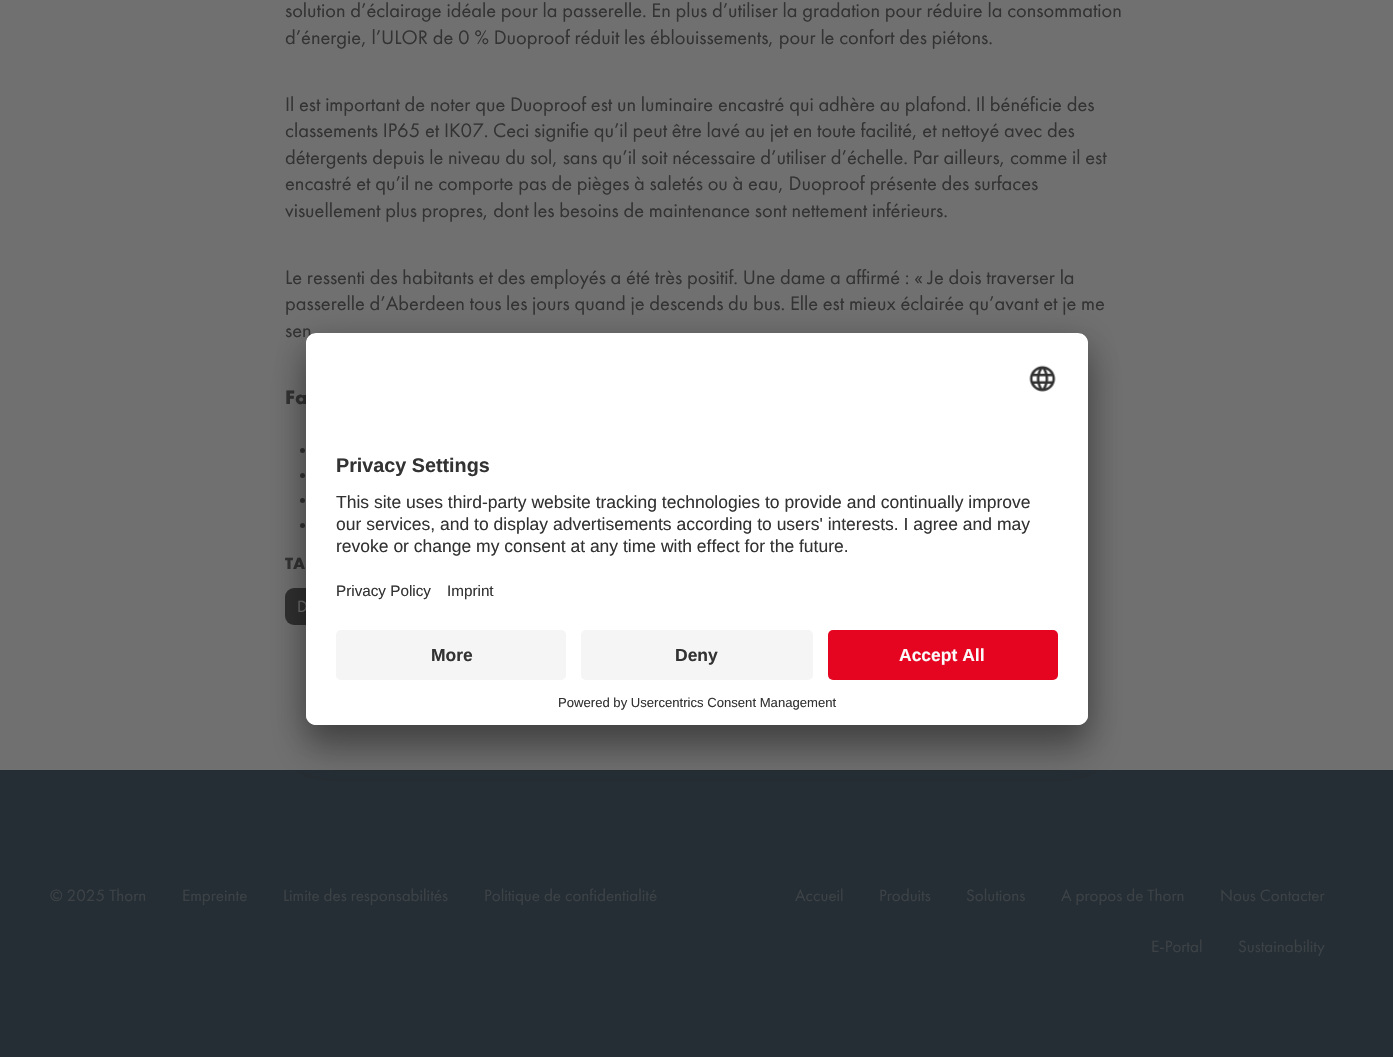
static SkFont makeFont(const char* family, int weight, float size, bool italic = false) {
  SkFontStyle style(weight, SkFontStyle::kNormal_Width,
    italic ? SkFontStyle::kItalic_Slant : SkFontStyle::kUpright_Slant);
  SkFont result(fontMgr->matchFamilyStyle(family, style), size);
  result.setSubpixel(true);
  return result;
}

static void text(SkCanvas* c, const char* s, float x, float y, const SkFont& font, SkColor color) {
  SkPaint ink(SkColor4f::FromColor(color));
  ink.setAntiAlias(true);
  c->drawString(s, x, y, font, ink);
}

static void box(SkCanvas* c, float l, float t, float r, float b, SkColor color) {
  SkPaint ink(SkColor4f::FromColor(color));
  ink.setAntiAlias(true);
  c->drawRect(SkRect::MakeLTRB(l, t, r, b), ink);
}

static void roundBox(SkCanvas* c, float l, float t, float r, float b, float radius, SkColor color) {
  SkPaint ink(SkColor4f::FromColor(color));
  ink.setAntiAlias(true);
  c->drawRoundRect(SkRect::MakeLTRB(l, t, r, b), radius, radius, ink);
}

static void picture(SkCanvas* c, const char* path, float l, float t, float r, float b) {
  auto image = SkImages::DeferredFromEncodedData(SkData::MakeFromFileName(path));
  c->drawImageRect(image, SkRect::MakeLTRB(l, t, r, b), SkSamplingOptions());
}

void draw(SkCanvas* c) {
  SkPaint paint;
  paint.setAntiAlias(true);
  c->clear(0xff252e34);
  box(c, 0, 0, 1393, 770, 0xff707070);
  SkFont face1 = makeFont("Futura PT", 400, 20.4f);
  text(c, "solution d’éclairage idéale pour la passerelle. En plus d’utiliser la gradation pour réduire la consommation", 285, 17, face1, 0xff333333);
  text(c, "d’énergie, l’ULOR de 0 % Duoproof réduit les éblouissements, pour le confort des piétons.", 285, 44, face1, 0xff333333);
  text(c, "Il est important de noter que Duoproof est un luminaire encastré qui adhère au plafond. Il bénéficie des", 285, 111, face1, 0xff333333);
  text(c, "classements IP65 et IK07. Ceci signifie qu’il peut être lavé au jet en toute facilité, et nettoyé avec des", 285, 137, face1, 0xff333333);
  text(c, "détergents depuis le niveau du sol, sans qu’il soit nécessaire d’utiliser d’échelle. Par ailleurs, comme il est", 285, 164, face1, 0xff333333);
  text(c, "encastré et qu’il ne comporte pas de pièges à saletés ou à eau, Duoproof présente des surfaces", 285, 190, face1, 0xff333333);
  text(c, "visuellement plus propres, dont les besoins de maintenance sont nettement inférieurs.", 285, 217, face1, 0xff333333);
  text(c, "Le ressenti des habitants et des employés a été très positif. Une dame a affirmé : « Je dois traverser la", 285, 284, face1, 0xff333333);
  text(c, "passerelle d’Aberdeen tous les jours quand je descends du bus. Elle est mieux éclairée qu’avant et je me", 285, 310, face1, 0xff333333);
  text(c, "sen", 285, 337, face1, 0xff333333);
  SkFont face2 = makeFont("Futura PT", 700, 20.4f);
  text(c, "Fa", 285, 404, face2, 0xff333333);
  paint.setColor(0xff333333);
  c->drawCircle(302.5f, 450.5f, 2.5f, paint);
  c->drawCircle(302.5f, 475.5f, 2.5f, paint);
  c->drawCircle(302.5f, 500.5f, 2.5f, paint);
  c->drawCircle(302.5f, 525.5f, 2.5f, paint);
  SkFont face3 = makeFont("Futura PT", 700, 17);
  text(c, "TA", 285, 569, face3, 0xff333333);
  roundBox(c, 285, 588, 374, 625, 9, 0xff303030);
  SkFont face4 = makeFont("Futura PT", 400, 17);
  text(c, "D", 297, 612, face4, 0xff707070);
  text(c, "© 2025 Thorn", 50, 901, face4, 0xff3c4246);
  text(c, "Empreinte", 182, 901, face4, 0xff3c4246);
  text(c, "Limite des responsabilités", 283, 901, face4, 0xff3c4246);
  text(c, "Politique de confidentialité", 484, 901, face4, 0xff3c4246);
  text(c, "Accueil", 795, 901, face4, 0xff3c4246);
  text(c, "Produits", 879, 901, face4, 0xff3c4246);
  text(c, "Solutions", 966, 901, face4, 0xff3c4246);
  text(c, "A propos de Thorn", 1061, 901, face4, 0xff3c4246);
  text(c, "Nous Contacter", 1220, 901, face4, 0xff3c4246);
  text(c, "E-Portal", 1151, 952, face4, 0xff3c4246);
  text(c, "Sustainability", 1238, 952, face4, 0xff3c4246);
  paint.setColor(0x4d000000);
  paint.setMaskFilter(SkMaskFilter::MakeBlur(kNormal_SkBlurStyle, 17.5f));
  c->drawRoundRect(SkRect::MakeLTRB(306, 358, 1088, 750), 10, 10, paint);
  paint.setMaskFilter(nullptr);
  paint.setColor(0x38000000);
  paint.setMaskFilter(SkMaskFilter::MakeBlur(kNormal_SkBlurStyle, 16));
  c->drawRoundRect(SkRect::MakeLTRB(306, 339, 1088, 731), 10, 10, paint);
  paint.setMaskFilter(nullptr);
  roundBox(c, 306, 333, 1088, 725, 10, 0xffffffff);
  c->save();
  c->clipPath(SkPathBuilder().moveTo(316, 333).lineTo(1078, 333).cubicTo(1083.5f, 333, 1088, 337.5f, 1088, 343).lineTo(1088, 715).cubicTo(1088, 720.5f, 1083.5f, 725, 1078, 725).lineTo(316, 725).cubicTo(310.5f, 725, 306, 720.5f, 306, 715).lineTo(306, 343).cubicTo(306, 337.5f, 310.5f, 333, 316, 333).close().detach(), true);
  c->clipPath(SkPathBuilder().moveTo(316, 333).lineTo(1078, 333).cubicTo(1083.5f, 333, 1088, 337.5f, 1088, 343).lineTo(1088, 620).lineTo(306, 620).lineTo(306, 343).cubicTo(306, 337.5f, 310.5f, 333, 316, 333).close().detach(), true);
  box(c, 306, 334, 1088, 620, 0xffffffff);
  c->restore();
  picture(c, "img_01.png", 1029, 365, 1056, 392);
  SkFont face5 = makeFont("Liberation Sans", 700, 19.75f);
  text(c, "Privacy Settings", 336, 472, face5, 0xff333333);
  SkFont face6 = makeFont("Liberation Sans", 400, 17.5f);
  text(c, "This site uses third-party website tracking technologies to provide and continually improve", 336, 508, face6, 0xff333333);
  text(c, "our services, and to display advertisements according to users' interests. I agree and may", 336, 530, face6, 0xff333333);
  text(c, "revoke or change my consent at any time with effect for the future.", 336, 552, face6, 0xff333333);
  SkFont face7 = makeFont("Liberation Sans", 400, 15.25f);
  text(c, "Privacy Policy", 336, 596, face7, 0xff333333);
  text(c, "Imprint", 447, 596, face7, 0xff333333);
  paint.setColor(0xffffffff);
  c->drawPath(SkPathBuilder().moveTo(306, 620).lineTo(1088, 620).lineTo(1088, 715).cubicTo(1088, 720.5f, 1083.5f, 725, 1078, 725).lineTo(316, 725).cubicTo(310.5f, 725, 306, 720.5f, 306, 715).close().detach(), paint);
  roundBox(c, 336, 630, 566, 680, 5, 0xfff5f5f5);
  SkFont face8 = makeFont("Liberation Sans", 700, 17.5f);
  text(c, "More", 431, 661, face8, 0xff333333);
  roundBox(c, 581, 630, 813, 680, 5, 0xfff5f5f5);
  text(c, "Deny", 675, 661, face8, 0xff333333);
  roundBox(c, 828, 630, 1058, 680, 5, 0xffe60521);
  text(c, "Accept All", 899, 661, face8, 0xfffafafa);
  SkFont face9 = makeFont("Liberation Sans", 400, 13.1f);
  text(c, "Powered by Usercentrics Consent Management", 558, 707, face9, 0xff333333);
}
